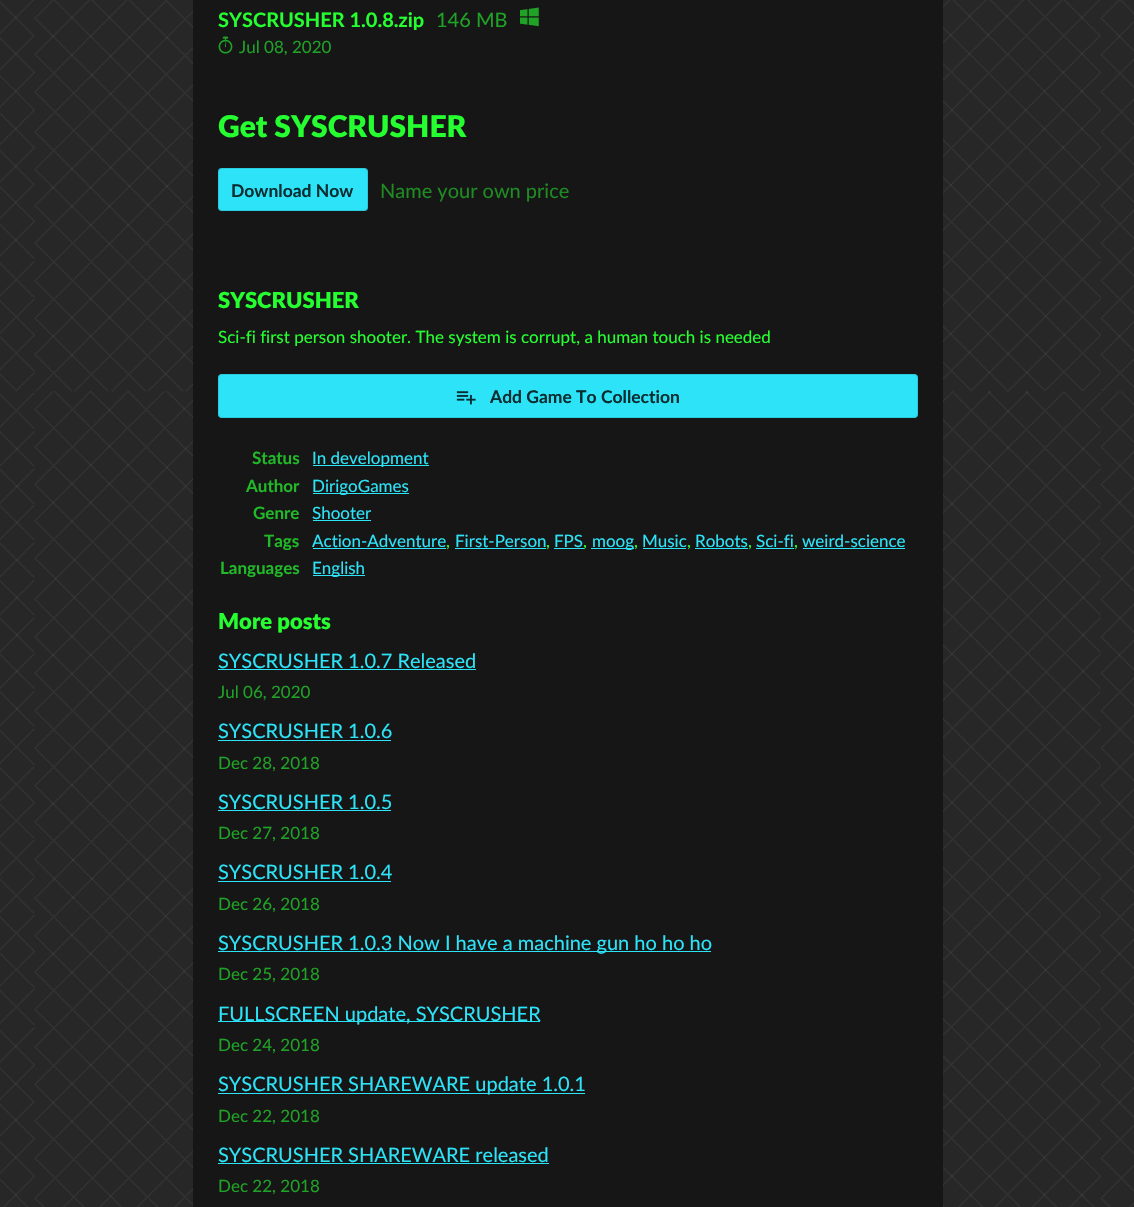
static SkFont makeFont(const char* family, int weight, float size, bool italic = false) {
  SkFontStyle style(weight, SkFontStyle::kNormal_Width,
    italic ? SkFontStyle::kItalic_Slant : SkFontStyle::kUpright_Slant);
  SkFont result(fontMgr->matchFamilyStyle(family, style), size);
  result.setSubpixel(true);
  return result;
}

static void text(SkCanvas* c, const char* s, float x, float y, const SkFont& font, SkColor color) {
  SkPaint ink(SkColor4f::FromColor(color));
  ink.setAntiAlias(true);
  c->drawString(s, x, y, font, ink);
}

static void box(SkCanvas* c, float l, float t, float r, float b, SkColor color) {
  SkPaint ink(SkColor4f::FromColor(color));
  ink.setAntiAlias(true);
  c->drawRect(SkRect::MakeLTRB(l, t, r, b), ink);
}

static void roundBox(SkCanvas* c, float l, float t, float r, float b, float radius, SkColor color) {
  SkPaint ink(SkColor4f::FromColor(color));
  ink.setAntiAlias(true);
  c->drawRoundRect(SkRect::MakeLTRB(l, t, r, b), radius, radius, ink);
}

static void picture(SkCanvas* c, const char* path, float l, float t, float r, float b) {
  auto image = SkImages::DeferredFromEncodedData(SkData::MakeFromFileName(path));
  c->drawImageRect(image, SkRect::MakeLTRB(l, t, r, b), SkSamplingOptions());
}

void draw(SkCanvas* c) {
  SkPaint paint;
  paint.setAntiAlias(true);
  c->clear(0xffffffff);
  picture(c, "img_01.png", 0, 0, 1134, 1207);
  box(c, 193, 0, 943, 1207, 0xff161616);
  c->save();
  c->clipRect(SkRect::MakeLTRB(218, 6, 424, 30));
  SkFont face1 = makeFont("Lato", 700, 20);
  text(c, "SYSCRUSHER 1.0.8.zip", 218, 27, face1, 0xff25ff30);
  c->restore();
  SkFont face2 = makeFont("Lato", 400, 20);
  text(c, "146 MB", 436, 27, face2, 0xff1fa226);
  picture(c, "img_02.png", 520, 7, 539, 27);
  picture(c, "img_03.png", 218, 36, 233, 54);
  SkFont face3 = makeFont("Lato", 400, 17);
  text(c, "Jul 08, 2020", 239, 53, face3, 0xff1fa226);
  SkFont face4 = makeFont("Lato", 900, 30);
  text(c, "Get SYSCRUSHER", 218, 137, face4, 0xff25ff30);
  roundBox(c, 218, 168, 368, 211, 4, 0xff2de3f7);
  paint.setStyle(SkPaint::kStroke_Style);
  paint.setStrokeWidth(1);
  paint.setColor(0x1a000000);
  c->drawRoundRect(SkRect::MakeLTRB(218.5f, 168.5f, 367.5f, 210.5f), 3.5f, 3.5f, paint);
  SkFont face5 = makeFont("Lato", 700, 17.5f);
  text(c, "Download Now", 231, 197, face5, 0xff092d31);
  text(c, "Name your own price", 380, 198, face2, 0xff1e8b23);
  SkFont face6 = makeFont("Lato", 900, 22);
  text(c, "SYSCRUSHER", 218, 308, face6, 0xff25ff30);
  text(c, "Sci-fi first person shooter. The system is corrupt, a human touch is needed", 218, 343, face3, 0xff25ff30);
  roundBox(c, 218, 374, 918, 418, 4, 0xff2de3f7);
  c->drawRoundRect(SkRect::MakeLTRB(218.5f, 374.5f, 917.5f, 417.5f), 3.5f, 3.5f, paint);
  picture(c, "img_04.png", 456, 391, 476, 405);
  text(c, "Add Game To Collection", 490, 403, face5, 0xff092d31);
  SkFont face7 = makeFont("Lato", 700, 17);
  text(c, "Status", 252, 464, face7, 0xff21b928);
  box(c, 313, 465, 429, 466, 0xff2de3f7);
  text(c, "In development", 312, 464, face3, 0xff2de3f7);
  text(c, "Author", 246, 492, face7, 0xff21b928);
  box(c, 313, 493, 409, 494, 0xff2de3f7);
  text(c, "DirigoGames", 312, 492, face3, 0xff2de3f7);
  text(c, "Genre", 253, 519, face7, 0xff21b928);
  text(c, "Shooter", 312, 519, face3, 0xff2de3f7);
  box(c, 313, 520, 371, 521, 0xff2de3f7);
  text(c, "Tags", 264, 547, face7, 0xff21b928);
  text(c, "Action-Adventure", 312, 547, face3, 0xff2de3f7);
  box(c, 313, 548, 446, 549, 0xff2de3f7);
  text(c, ",", 446, 547, face3, 0xff25ff30);
  text(c, "First-Person", 455, 547, face3, 0xff2de3f7);
  box(c, 455, 548, 546, 549, 0xff2de3f7);
  text(c, ",", 546, 547, face3, 0xff25ff30);
  text(c, "FPS", 554, 547, face3, 0xff2de3f7);
  box(c, 554, 548, 584, 549, 0xff2de3f7);
  text(c, ",", 583, 547, face3, 0xff25ff30);
  box(c, 591, 548, 634, 549, 0xff2de3f7);
  text(c, "moog", 592, 547, face3, 0xff2de3f7);
  text(c, ",", 634, 547, face3, 0xff25ff30);
  text(c, "Music", 642, 547, face3, 0xff2de3f7);
  box(c, 643, 548, 686, 549, 0xff2de3f7);
  text(c, ",", 687, 547, face3, 0xff25ff30);
  text(c, "Robots", 695, 547, face3, 0xff2de3f7);
  box(c, 695, 548, 748, 549, 0xff2de3f7);
  text(c, ",", 748, 547, face3, 0xff25ff30);
  text(c, "Sci-fi", 756, 547, face3, 0xff2de3f7);
  box(c, 756, 548, 794, 549, 0xff2de3f7);
  text(c, ",", 794, 547, face3, 0xff25ff30);
  text(c, "weird-science", 802, 547, face3, 0xff2de3f7);
  box(c, 803, 548, 905, 549, 0xff2de3f7);
  text(c, "Languages", 220, 574, face7, 0xff21b928);
  box(c, 313, 575, 365, 576, 0xff2de3f7);
  text(c, "English", 312, 574, face3, 0xff2de3f7);
  text(c, "More posts", 218, 629, face6, 0xff25ff30);
  text(c, "SYSCRUSHER 1.0.7 Released", 218, 668, face2, 0xff2de3f7);
  box(c, 218, 669, 476, 670, 0xff2de3f7);
  text(c, "Jul 06, 2020", 218, 698, face3, 0xff1fa226);
  text(c, "SYSCRUSHER 1.0.6", 218, 738, face2, 0xff2de3f7);
  box(c, 218, 740, 391, 741, 0xff2de3f7);
  text(c, "Dec 28, 2018", 218, 769, face3, 0xff1fa226);
  text(c, "SYSCRUSHER 1.0.5", 218, 809, face2, 0xff2de3f7);
  box(c, 218, 810, 391, 811, 0xff2de3f7);
  text(c, "Dec 27, 2018", 218, 839, face3, 0xff1fa226);
  text(c, "SYSCRUSHER 1.0.4", 218, 879, face2, 0xff2de3f7);
  box(c, 218, 881, 391, 882, 0xff2de3f7);
  text(c, "Dec 26, 2018", 218, 910, face3, 0xff1fa226);
  box(c, 218, 951, 711, 952, 0xff2de3f7);
  text(c, "SYSCRUSHER 1.0.3 Now I have a machine gun ho ho ho", 218, 950, face2, 0xff2de3f7);
  text(c, "Dec 25, 2018", 218, 980, face3, 0xff1fa226);
  box(c, 218, 1021, 540, 1022, 0xff2de3f7);
  text(c, "FULLSCREEN update, SYSCRUSHER", 218, 1021, face2, 0xff2de3f7);
  text(c, "Dec 24, 2018", 218, 1051, face3, 0xff1fa226);
  box(c, 218, 1093, 585, 1094, 0xff2de3f7);
  text(c, "SYSCRUSHER SHAREWARE update 1.0.1", 218, 1091, face2, 0xff2de3f7);
  text(c, "Dec 22, 2018", 218, 1122, face3, 0xff1fa226);
  text(c, "SYSCRUSHER SHAREWARE released", 218, 1162, face2, 0xff2de3f7);
  box(c, 218, 1163, 549, 1164, 0xff2de3f7);
  text(c, "Dec 22, 2018", 218, 1192, face3, 0xff1fa226);
}
